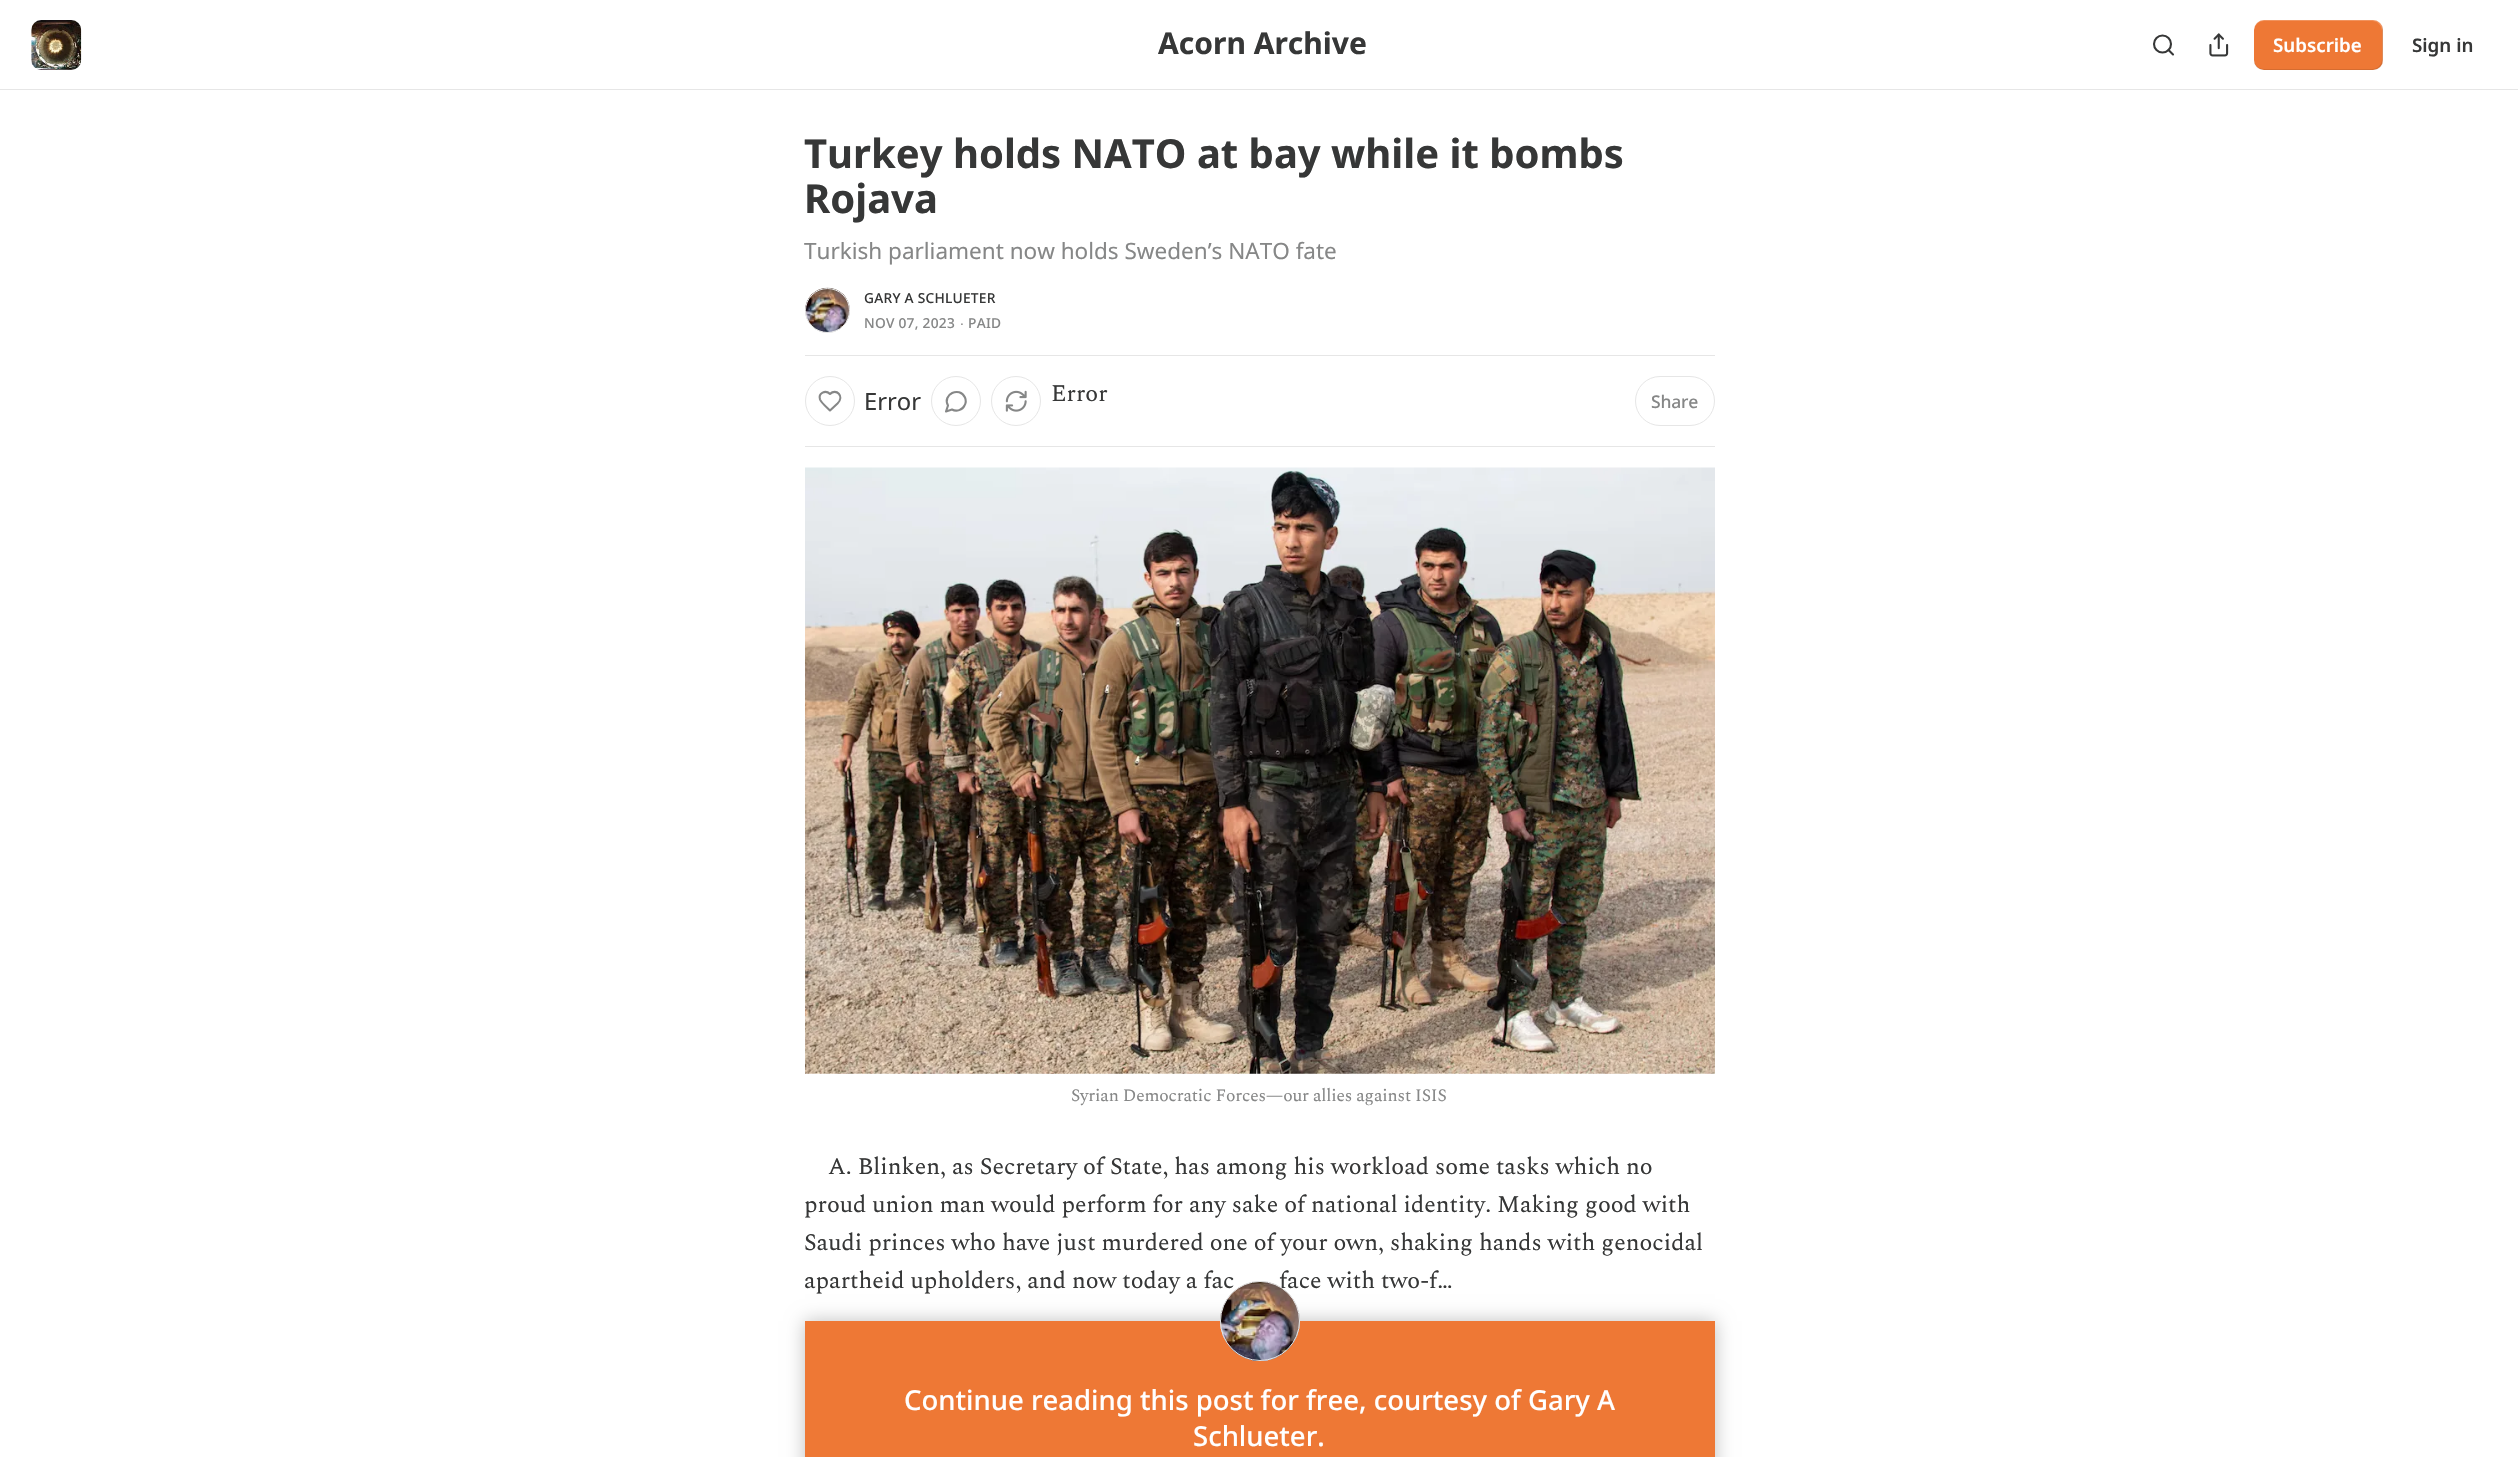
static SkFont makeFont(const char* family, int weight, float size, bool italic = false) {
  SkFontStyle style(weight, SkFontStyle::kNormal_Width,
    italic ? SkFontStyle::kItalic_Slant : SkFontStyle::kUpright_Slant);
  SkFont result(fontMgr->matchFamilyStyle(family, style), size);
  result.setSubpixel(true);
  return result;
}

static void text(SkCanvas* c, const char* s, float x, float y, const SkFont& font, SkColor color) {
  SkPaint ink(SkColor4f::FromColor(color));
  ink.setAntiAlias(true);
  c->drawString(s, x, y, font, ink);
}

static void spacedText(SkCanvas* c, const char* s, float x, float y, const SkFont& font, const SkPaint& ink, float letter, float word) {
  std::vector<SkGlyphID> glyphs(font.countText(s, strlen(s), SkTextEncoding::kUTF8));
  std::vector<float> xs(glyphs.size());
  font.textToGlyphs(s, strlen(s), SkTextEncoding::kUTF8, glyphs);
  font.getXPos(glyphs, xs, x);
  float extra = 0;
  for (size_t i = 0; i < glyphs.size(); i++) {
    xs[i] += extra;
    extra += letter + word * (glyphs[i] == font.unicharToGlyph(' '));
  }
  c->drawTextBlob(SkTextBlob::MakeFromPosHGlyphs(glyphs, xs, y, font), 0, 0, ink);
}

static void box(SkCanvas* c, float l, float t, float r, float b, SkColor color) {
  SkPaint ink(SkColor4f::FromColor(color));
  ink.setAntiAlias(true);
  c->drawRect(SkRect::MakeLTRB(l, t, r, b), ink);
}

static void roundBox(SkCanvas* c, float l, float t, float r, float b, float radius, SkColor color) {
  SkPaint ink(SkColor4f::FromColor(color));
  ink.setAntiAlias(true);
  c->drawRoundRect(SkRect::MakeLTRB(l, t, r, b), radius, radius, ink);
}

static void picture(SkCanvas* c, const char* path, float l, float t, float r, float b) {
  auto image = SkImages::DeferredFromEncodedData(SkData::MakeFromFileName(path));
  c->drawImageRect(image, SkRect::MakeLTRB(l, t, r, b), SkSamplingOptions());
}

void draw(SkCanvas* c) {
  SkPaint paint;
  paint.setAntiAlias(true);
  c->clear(0xffffffff);
  box(c, 0, 89, 2518, 90, 0xffe6e6e6);
  picture(c, "img_01.png", 31, 20, 82, 70);
  SkFont face1 = makeFont("Noto Sans", 700, 30);
  text(c, "Acorn Archive", 1158, 54, face1, 0xff363737);
  paint.setStyle(SkPaint::kStroke_Style);
  paint.setStrokeWidth(2.1f);
  paint.setColor(0xff363737);
  c->drawCircle(2162.5f, 44, 8.5f, paint);
  paint.setStrokeCap(SkPaint::kRound_Cap);
  paint.setStrokeJoin(SkPaint::kRound_Join);
  c->drawPath(SkPathBuilder().moveTo(2173, 54.5f).lineTo(2168.5f, 50).detach(), paint);
  picture(c, "img_02.png", 2209, 33, 2229, 57);
  roundBox(c, 2254, 20, 2383, 70, 10, 0xffee7835);
  paint.setStyle(SkPaint::kFill_Style);
  paint.setColor(0x1a000000);
  c->drawPath(SkPathBuilder().moveTo(2254, 59).lineTo(2254, 60).cubicTo(2254, 66, 2258, 70, 2264, 70).lineTo(2373, 70).cubicTo(2379, 70, 2383, 66, 2383, 60).lineTo(2383, 30).cubicTo(2383, 28, 2382, 25, 2381, 24).cubicTo(2382, 25, 2382, 27, 2382, 29).lineTo(2382, 59).cubicTo(2382, 64, 2378, 69, 2372, 69).lineTo(2264, 69).cubicTo(2258, 69, 2254, 64, 2254, 59).close().detach(), paint);
  paint.setColor(0x33ffffff);
  c->drawPath(SkPathBuilder().moveTo(2264, 21).lineTo(2372, 21).cubicTo(2378, 21, 2382, 26, 2382, 31).lineTo(2382, 61).cubicTo(2382, 63, 2382, 65, 2381, 66).cubicTo(2382, 65, 2383, 62, 2383, 60).lineTo(2383, 30).cubicTo(2383, 24, 2379, 20, 2373, 20).lineTo(2264, 20).cubicTo(2258, 20, 2254, 24, 2254, 30).lineTo(2254, 31).cubicTo(2254, 26, 2258, 21, 2264, 21).close().detach(), paint);
  SkFont face2 = makeFont("Noto Sans", 600, 18.75f);
  text(c, "Subscribe", 2273, 52, face2, 0xffffffff);
  text(c, "Sign in", 2412, 52, face2, 0xff363737);
  SkFont face3 = makeFont("Noto Sans", 700, 40);
  text(c, "Turkey holds NATO at bay while it bombs", 804, 168, face3, 0xff363737);
  text(c, "Rojava", 804, 213, face3, 0xff363737);
  SkFont face4 = makeFont("Noto Sans", 400, 22.5f);
  text(c, "Turkish parliament now holds Sweden’s NATO fate", 804, 259, face4, 0xff868787);
  paint.setStyle(SkPaint::kStroke_Style);
  paint.setStrokeWidth(1);
  paint.setStrokeCap(SkPaint::kButt_Cap);
  paint.setStrokeJoin(SkPaint::kMiter_Join);
  paint.setColor(0xffe6e6e6);
  c->drawCircle(827.5f, 310.5f, 22, paint);
  picture(c, "img_03.png", 805, 287, 850, 333);
  c->drawCircle(827.5f, 310.5f, 22, paint);
  SkFont face5 = makeFont("Noto Sans", 500, 13.75f);
  paint.setStyle(SkPaint::kFill_Style);
  paint.setColor(0xff363737);
  spacedText(c, "GARY A SCHLUETER", 864, 303, face5, paint, 0.25f, 0);
  paint.setColor(0xff868787);
  spacedText(c, "NOV 07, 2023", 864, 328, face5, paint, 0.25f, 0);
  SkFont face6 = makeFont("Liberation Sans", 400, 13.75f);
  spacedText(c, "∙", 960, 328, face6, paint, 0.25f, 0);
  spacedText(c, "PAID", 968, 328, face5, paint, 0.25f, 0);
  box(c, 805, 355, 1715, 356, 0xffe6e6e6);
  box(c, 805, 446, 1715, 447, 0xffe6e6e6);
  paint.setStyle(SkPaint::kStroke_Style);
  paint.setColor(0xffe6e6e6);
  c->drawCircle(830, 401, 24.5f, paint);
  paint.setStrokeWidth(2.1f);
  paint.setStrokeCap(SkPaint::kRound_Cap);
  paint.setStrokeJoin(SkPaint::kRound_Join);
  paint.setColor(0xff868787);
  c->drawPath(SkPathBuilder().moveTo(837.5f, 403.5f).cubicTo(845, 396, 836, 388, 830, 394).cubicTo(825.5f, 389.5f, 818, 393, 820, 399.5f).cubicTo(821, 402.5f, 827.5f, 408, 830, 410.5f).close().detach(), paint);
  SkFont face7 = makeFont("Noto Sans", 400, 23.75f);
  text(c, "Error", 864, 410, face7, 0xff363737);
  paint.setStrokeWidth(1);
  paint.setStrokeCap(SkPaint::kButt_Cap);
  paint.setStrokeJoin(SkPaint::kMiter_Join);
  paint.setColor(0xffe6e6e6);
  c->drawCircle(956, 401, 24.5f, paint);
  paint.setStrokeWidth(2.1f);
  paint.setStrokeCap(SkPaint::kRound_Cap);
  paint.setStrokeJoin(SkPaint::kRound_Join);
  paint.setColor(0xff868787);
  c->drawPath(SkPathBuilder().moveTo(952, 409.5f).cubicTo(956.5f, 412, 962.5f, 410, 964.5f, 405.5f).cubicTo(966, 403, 966, 400, 965, 397.5f).cubicTo(959.5f, 386, 942, 394.5f, 948, 405.5f).lineTo(946, 411.5f).close().detach(), paint);
  paint.setStrokeWidth(1);
  paint.setStrokeCap(SkPaint::kButt_Cap);
  paint.setStrokeJoin(SkPaint::kMiter_Join);
  paint.setColor(0xffe6e6e6);
  c->drawCircle(1016, 401, 24.5f, paint);
  picture(c, "img_04.png", 1005, 390, 1027, 412);
  SkFont face8 = makeFont("Spectral", 400, 23.75f);
  text(c, "Error", 1051, 401, face8, 0xff363737);
  c->drawRoundRect(SkRect::MakeLTRB(1635.5f, 376.5f, 1714.5f, 425.5f), 24.5f, 24.5f, paint);
  SkFont face9 = makeFont("Noto Sans", 500, 17.5f);
  paint.setStyle(SkPaint::kFill_Style);
  paint.setColor(0xff868787);
  spacedText(c, "Share", 1651, 408, face9, paint, -0.2f, 0);
  picture(c, "img_05.png", 805, 467, 1715, 1074);
  SkFont face10 = makeFont("Spectral", 400, 17.5f);
  spacedText(c, "Syrian Democratic Forces—our allies against ISIS", 1071, 1101, face10, paint, -0.2f, 0);
  text(c, "A. Blinken, as Secretary of State, has among his workload some tasks which no", 828, 1174, face8, 0xff363737);
  text(c, "proud union man would perform for any sake of national identity. Making good with", 804, 1212, face8, 0xff363737);
  text(c, "Saudi princes who have just murdered one of your own, shaking hands with genocidal", 804, 1250, face8, 0xff363737);
  text(c, "apartheid upholders, and now today a fac", 804, 1288, face8, 0xff363737);
  text(c, "face with two-f…", 1279, 1288, face8, 0xff363737);
  box(c, 805, 1321, 1715, 1457, 0xffee7835);
  c->save();
  c->clipPath(SkPathBuilder(SkPathFillType::kEvenOdd).moveTo(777, 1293).lineTo(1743, 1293).lineTo(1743, 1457).lineTo(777, 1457).close().moveTo(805, 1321).lineTo(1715, 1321).lineTo(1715, 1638).lineTo(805, 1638).close().detach(), true);
  paint.setColor(0x40000000);
  paint.setMaskFilter(SkMaskFilter::MakeBlur(kNormal_SkBlurStyle, 9));
  c->drawRect(SkRect::MakeLTRB(805, 1321, 1715, 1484), paint);
  paint.setMaskFilter(nullptr);
  c->restore();
  paint.setStyle(SkPaint::kStroke_Style);
  paint.setColor(0xffe6e6e6);
  c->drawCircle(1260, 1321, 39.5f, paint);
  picture(c, "img_06.png", 1220, 1281, 1300, 1361);
  c->drawCircle(1260, 1321, 39.5f, paint);
  SkFont face11 = makeFont("Noto Sans", 500, 27.5f);
  text(c, "Continue reading this post for free, courtesy of Gary A", 904, 1410, face11, 0xffffffff);
  text(c, "Schlueter.", 1193, 1446, face11, 0xffffffff);
}
